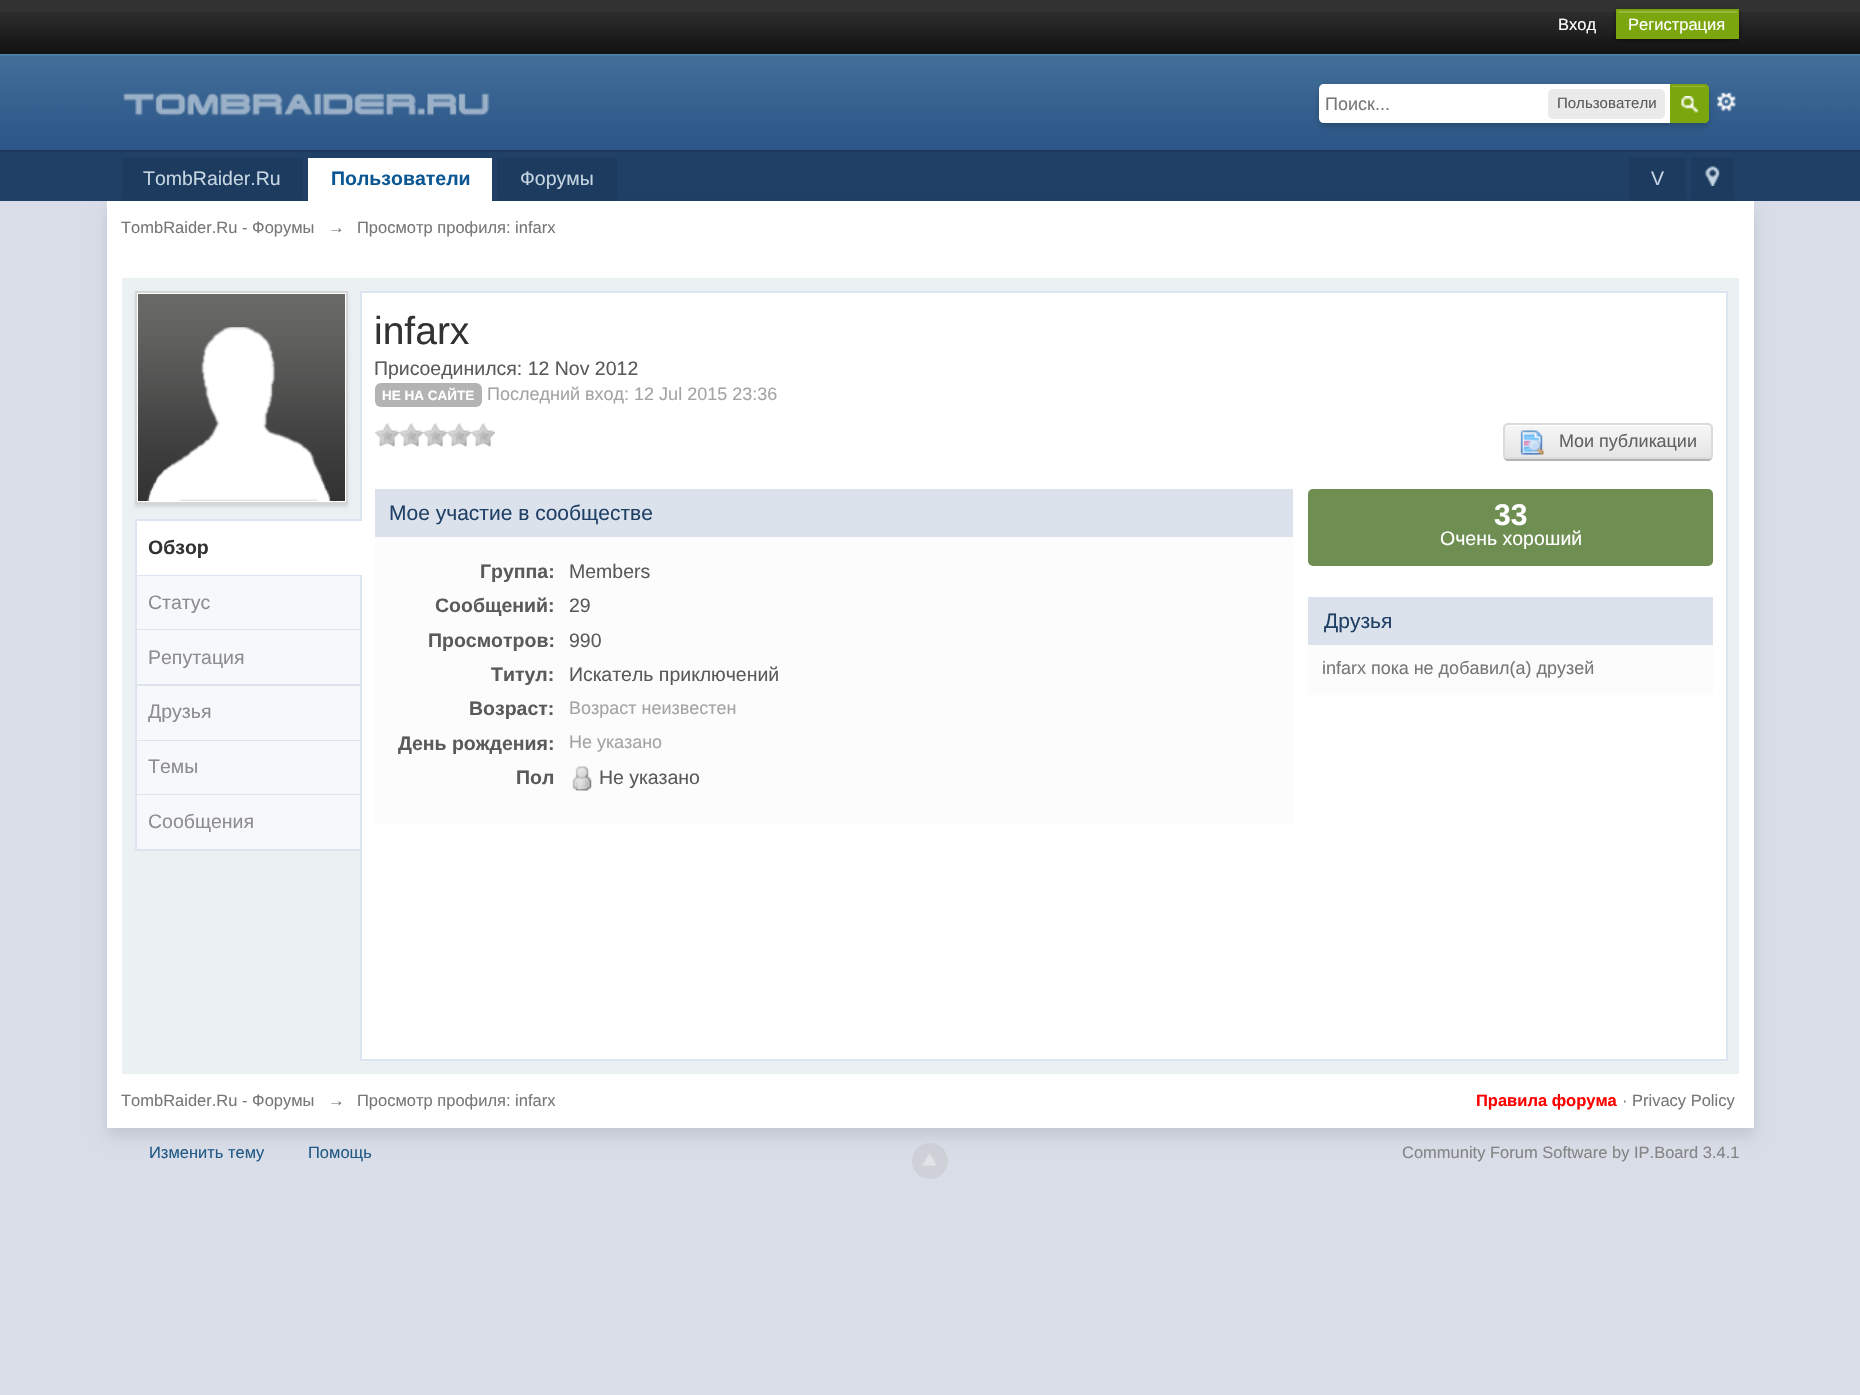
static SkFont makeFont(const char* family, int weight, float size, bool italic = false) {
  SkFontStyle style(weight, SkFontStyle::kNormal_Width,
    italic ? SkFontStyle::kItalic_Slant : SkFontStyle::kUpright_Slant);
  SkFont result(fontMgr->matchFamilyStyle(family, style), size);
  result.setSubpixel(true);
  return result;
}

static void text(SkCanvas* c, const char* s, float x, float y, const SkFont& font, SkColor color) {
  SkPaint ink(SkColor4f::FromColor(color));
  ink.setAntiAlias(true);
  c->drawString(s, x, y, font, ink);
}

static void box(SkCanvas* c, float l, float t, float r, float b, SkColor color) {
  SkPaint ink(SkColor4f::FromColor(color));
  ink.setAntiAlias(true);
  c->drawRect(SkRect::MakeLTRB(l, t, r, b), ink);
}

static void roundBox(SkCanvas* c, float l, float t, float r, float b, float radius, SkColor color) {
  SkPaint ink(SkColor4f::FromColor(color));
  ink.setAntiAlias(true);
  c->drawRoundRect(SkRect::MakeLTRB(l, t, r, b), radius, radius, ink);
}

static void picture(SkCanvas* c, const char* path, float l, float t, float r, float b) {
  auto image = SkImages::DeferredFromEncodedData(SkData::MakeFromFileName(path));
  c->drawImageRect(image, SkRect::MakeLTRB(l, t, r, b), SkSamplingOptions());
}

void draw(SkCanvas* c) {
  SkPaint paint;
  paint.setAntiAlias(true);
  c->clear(0xffd8dde8);
  box(c, 0, 0, 1860, 12, 0xff323232);
  picture(c, "img_01.png", 0, 12, 1860, 54);
  SkFont face1 = makeFont("Liberation Sans", 400, 16.5f);
  text(c, "Вход", 1558, 30, face1, 0xffffffff);
  paint.setColor(0x66000000);
  paint.setMaskFilter(SkMaskFilter::MakeBlur(kNormal_SkBlurStyle, 3));
  c->drawRect(SkRect::MakeLTRB(1616, 11, 1739, 41), paint);
  paint.setMaskFilter(nullptr);
  box(c, 1618, 13, 1737, 37, 0xff7ba60d);
  box(c, 1617, 11, 1737, 13, 0xff95b83d);
  paint.setStyle(SkPaint::kStroke_Style);
  paint.setStrokeWidth(2);
  paint.setColor(0xff7ba60d);
  c->drawRect(SkRect::MakeLTRB(1617, 10, 1738, 38), paint);
  text(c, "Регистрация", 1628, 30, face1, 0xffffffff);
  picture(c, "img_02.png", 0, 54, 1860, 150);
  box(c, 0, 150, 1860, 152, 0xff1b3759);
  picture(c, "img_03.png", 123, 93, 490, 116);
  picture(c, "img_05.png", 1717, 92, 1736, 112);
  paint.setStyle(SkPaint::kFill_Style);
  paint.setColor(0x33000000);
  paint.setMaskFilter(SkMaskFilter::MakeBlur(kNormal_SkBlurStyle, 3));
  c->drawRoundRect(SkRect::MakeLTRB(1319, 87, 1709, 126), 6, 6, paint);
  paint.setMaskFilter(nullptr);
  paint.setColor(0xffffffff);
  c->drawPath(SkPathBuilder().moveTo(1324, 84).lineTo(1703, 84).cubicTo(1706.5f, 84, 1709, 86.5f, 1709, 90).lineTo(1709, 117).cubicTo(1709, 120.5f, 1706.5f, 123, 1703, 123).lineTo(1324, 123).cubicTo(1321, 123, 1319, 121, 1319, 118).lineTo(1319, 89).cubicTo(1319, 86, 1321, 84, 1324, 84).close().detach(), paint);
  SkFont face2 = makeFont("Liberation Sans", 400, 18);
  text(c, "Поиск...", 1325, 110, face2, 0xff777777);
  roundBox(c, 1548, 89, 1665, 119, 5, 0xffeaeaea);
  SkFont face3 = makeFont("Liberation Sans", 400, 15);
  text(c, "Пользователи", 1557, 108, face3, 0xff5a5a5a);
  paint.setColor(0xff7ba60d);
  c->drawPath(SkPathBuilder().moveTo(1670, 84).lineTo(1704, 84).cubicTo(1707, 84, 1709, 86, 1709, 89).lineTo(1709, 118).cubicTo(1709, 121, 1707, 123, 1704, 123).lineTo(1670, 123).close().detach(), paint);
  picture(c, "img_04.png", 1681, 96, 1698, 113);
  paint.setColor(0xff95b83d);
  c->drawPath(SkPathBuilder().moveTo(1671, 87).lineTo(1704, 87).cubicTo(1706, 87, 1707, 88, 1707, 90).lineTo(1707, 89).cubicTo(1707, 87.5f, 1705.5f, 86, 1704, 86).lineTo(1671, 86).close().detach(), paint);
  paint.setStyle(SkPaint::kStroke_Style);
  paint.setColor(0xff7ba60d);
  c->drawPath(SkPathBuilder().moveTo(1671, 85).lineTo(1704, 85).cubicTo(1706, 85, 1708, 87, 1708, 89).lineTo(1708, 118).cubicTo(1708, 120, 1706, 122, 1704, 122).lineTo(1671, 122).close().detach(), paint);
  box(c, 0, 152, 1860, 201, 0xff204066);
  paint.setStyle(SkPaint::kFill_Style);
  paint.setColor(0x1a000000);
  paint.setMaskFilter(SkMaskFilter::MakeBlur(kNormal_SkBlurStyle, 7));
  c->drawRect(SkRect::MakeLTRB(107, 209, 1754, 1136), paint);
  paint.setMaskFilter(nullptr);
  box(c, 122, 158, 303, 201, 0xff1c3b5f);
  SkFont face4 = makeFont("Liberation Sans", 400, 19.5f);
  text(c, "TombRaider.Ru", 143, 185, face4, 0xffc5d5e2);
  box(c, 308, 158, 492, 201, 0xffffffff);
  SkFont face5 = makeFont("Liberation Sans", 700, 19.5f);
  text(c, "Пользователи", 331, 185, face5, 0xff0b5794);
  box(c, 497, 158, 617, 201, 0xff1c3b5f);
  text(c, "Форумы", 520, 185, face4, 0xffc5d5e2);
  box(c, 1629, 158, 1686, 201, 0xff1c3b5f);
  text(c, "V", 1651, 185, face4, 0xffc5d5e2);
  box(c, 1691, 158, 1734, 201, 0xff1c3b5f);
  picture(c, "img_06.png", 1705, 166, 1720, 186);
  box(c, 107, 201, 1754, 1128, 0xffffffff);
  text(c, "TombRaider.Ru - Форумы", 121, 233, face1, 0xff777777);
  text(c, "→", 328, 233, face1, 0xff777777);
  text(c, "Просмотр профиля: infarx", 357, 233, face1, 0xff777777);
  box(c, 122, 278, 1739, 1074, 0xffebf0f3);
  paint.setMaskFilter(SkMaskFilter::MakeBlur(kNormal_SkBlurStyle, 1.5f));
  c->drawRect(SkRect::MakeLTRB(135, 294, 348, 507), paint);
  paint.setMaskFilter(nullptr);
  paint.setColor(0xffffffff);
  c->drawRect(SkRect::MakeLTRB(136, 292, 347, 503), paint);
  paint.setStyle(SkPaint::kStroke_Style);
  paint.setColor(0xffd5d5d5);
  c->drawRect(SkRect::MakeLTRB(136, 292, 347, 503), paint);
  picture(c, "img_07.png", 138, 294, 345, 501);
  box(c, 135, 519, 360, 521, 0xffdbe4ef);
  box(c, 135, 519, 137, 851, 0xffdbe4ef);
  box(c, 137, 575, 360, 576, 0xffdbe4ef);
  paint.setStyle(SkPaint::kFill_Style);
  paint.setColor(0xffffffff);
  c->drawRect(SkRect::MakeLTRB(361, 292, 1727, 1060), paint);
  paint.setStyle(SkPaint::kStroke_Style);
  paint.setColor(0xffdbe4ef);
  c->drawRect(SkRect::MakeLTRB(361, 292, 1727, 1060), paint);
  box(c, 137, 521, 362, 575, 0xffffffff);
  text(c, "Обзор", 148, 554, face5, 0xff323232);
  box(c, 137, 576, 360, 629, 0xfff6f8fb);
  box(c, 137, 629, 360, 630, 0xffdbe4ef);
  text(c, "Статус", 148, 609, face4, 0xff8d8d8d);
  box(c, 137, 630, 360, 684, 0xfff6f8fb);
  box(c, 137, 684, 360, 686, 0xffdbe4ef);
  text(c, "Репутация", 148, 664, face4, 0xff8d8d8d);
  box(c, 137, 686, 360, 740, 0xfff6f8fb);
  box(c, 137, 740, 360, 741, 0xffdbe4ef);
  text(c, "Друзья", 148, 718, face4, 0xff8d8d8d);
  box(c, 137, 741, 360, 794, 0xfff6f8fb);
  box(c, 137, 794, 360, 795, 0xffdbe4ef);
  text(c, "Темы", 148, 773, face4, 0xff8d8d8d);
  box(c, 137, 795, 360, 849, 0xfff6f8fb);
  box(c, 137, 849, 360, 851, 0xffdbe4ef);
  text(c, "Сообщения", 148, 828, face4, 0xff8d8d8d);
  SkFont face6 = makeFont("Liberation Sans", 400, 39);
  text(c, "infarx", 374, 344, face6, 0xff323232);
  text(c, "Присоединился: 12 Nov 2012", 374, 375, face4, 0xff5a5a5a);
  roundBox(c, 375, 383, 482, 407, 6, 0xffb3b3b3);
  SkFont face7 = makeFont("Liberation Sans", 700, 13.5f);
  text(c, "НЕ НА САЙТЕ", 382, 400, face7, 0xffffffff);
  text(c, "Последний вход: 12 Jul 2015 23:36", 487, 400, face2, 0xffa4a4a4);
  picture(c, "img_08.png", 375, 423, 399, 447);
  picture(c, "img_08.png", 399, 423, 423, 447);
  picture(c, "img_08.png", 423, 423, 447, 447);
  picture(c, "img_08.png", 447, 423, 471, 447);
  picture(c, "img_08.png", 471, 423, 495, 447);
  paint.setStyle(SkPaint::kFill_Style);
  paint.setColor(0xffb3b3b3);
  c->drawPath(SkPathBuilder().moveTo(1503, 454).cubicTo(1503, 457, 1504, 460, 1507, 461).lineTo(1709, 461).cubicTo(1712, 460, 1713, 457, 1713, 454).cubicTo(1713, 457, 1711, 459, 1708, 459).lineTo(1508, 459).cubicTo(1505, 459, 1503, 457, 1503, 454).close().detach(), paint);
  c->save();
  c->clipPath(SkPathBuilder().moveTo(1508, 423).lineTo(1708, 423).cubicTo(1711, 423, 1713, 425, 1713, 428).lineTo(1713, 454).cubicTo(1713, 457, 1711, 459, 1708, 459).lineTo(1508, 459).cubicTo(1505, 459, 1503, 457, 1503, 454).lineTo(1503, 428).cubicTo(1503, 425, 1505, 423, 1508, 423).close().detach(), true);
  {
    const SkColor colors[] = {0xfff6f6f6, 0xffe5e5e5};
    const float stops[] = {0, 1};
    const SkPoint ends[] = {{1505, 425}, {1505, 458}};
    paint.setShader(SkGradientShader::MakeLinear(ends, colors, stops, 2, SkTileMode::kClamp));
    paint.setAlpha(255);
  }
  c->drawRect(SkRect::MakeLTRB(1503, 425, 1713, 458), paint);
  c->restore();
  paint.setShader(nullptr);
  paint.setColor(0xffffffff);
  c->drawPath(SkPathBuilder().moveTo(1508, 426).lineTo(1708, 426).cubicTo(1710, 426, 1712, 427, 1712, 429).lineTo(1712, 428).cubicTo(1712, 426, 1711, 425, 1709, 425).lineTo(1508, 425).cubicTo(1507, 425, 1506, 426, 1505, 427).close().detach(), paint);
  paint.setStyle(SkPaint::kStroke_Style);
  paint.setColor(0xffdbdbdb);
  c->drawRoundRect(SkRect::MakeLTRB(1504, 424, 1712, 458), 4, 4, paint);
  picture(c, "img_09.png", 1520, 430, 1544, 455);
  text(c, "Мои публикации", 1559, 447, face2, 0xff616161);
  box(c, 375, 537, 1293, 824, 0xfffcfcfc);
  box(c, 375, 489, 1293, 537, 0xffdbe2ec);
  SkFont face8 = makeFont("Liberation Sans", 400, 21);
  text(c, "Мое участие в сообществе", 389, 520, face8, 0xff204066);
  text(c, "Группа:", 480, 578, face5, 0xff5a5a5a);
  text(c, "Members", 569, 578, face4, 0xff5a5a5a);
  text(c, "Сообщений:", 435, 612, face5, 0xff5a5a5a);
  text(c, "29", 569, 612, face4, 0xff5a5a5a);
  text(c, "Просмотров:", 428, 647, face5, 0xff5a5a5a);
  text(c, "990", 569, 647, face4, 0xff5a5a5a);
  text(c, "Титул:", 491, 681, face5, 0xff5a5a5a);
  text(c, "Искатель приключений", 569, 681, face4, 0xff5a5a5a);
  text(c, "Возраст:", 469, 715, face5, 0xff5a5a5a);
  text(c, "Возраст неизвестен", 569, 714, face2, 0xffa4a4a4);
  text(c, "День рождения:", 398, 750, face5, 0xff5a5a5a);
  text(c, "Не указано", 569, 748, face2, 0xffa4a4a4);
  text(c, "Пол", 516, 784, face5, 0xff5a5a5a);
  picture(c, "img_10.png", 572, 766, 592, 791);
  text(c, "Не указано", 599, 784, face4, 0xff5a5a5a);
  roundBox(c, 1308, 489, 1713, 566, 5, 0xff6f8f52);
  SkFont face9 = makeFont("Liberation Sans", 700, 30);
  text(c, "33", 1494, 525, face9, 0xffffffff);
  text(c, "Очень хороший", 1440, 545, face4, 0xffffffff);
  box(c, 1308, 645, 1713, 695, 0xfffcfcfc);
  box(c, 1308, 597, 1713, 645, 0xffdbe2ec);
  text(c, "Друзья", 1324, 628, face8, 0xff204066);
  text(c, "infarx пока не добавил(а) друзей", 1322, 674, face2, 0xff777777);
  text(c, "TombRaider.Ru - Форумы", 121, 1106, face1, 0xff777777);
  text(c, "→", 328, 1106, face1, 0xff777777);
  text(c, "Просмотр профиля: infarx", 357, 1106, face1, 0xff777777);
  SkFont face10 = makeFont("Liberation Sans", 700, 16.5f);
  text(c, "Правила форума", 1476, 1106, face10, 0xffff0000);
  text(c, "·", 1622, 1106, face1, 0xff777777);
  text(c, "Privacy Policy", 1632, 1106, face1, 0xff777777);
  text(c, "Изменить тему", 149, 1158, face1, 0xff225985);
  text(c, "Помощь", 308, 1158, face1, 0xff225985);
  paint.setStyle(SkPaint::kFill_Style);
  paint.setColor(0x66bdbdbd);
  c->drawCircle(930, 1161, 18, paint);
  picture(c, "img_11.png", 922, 1153, 937, 1166);
  text(c, "Community Forum Software by IP.Board 3.4.1", 1402, 1158, face1, 0xff848484);
}
